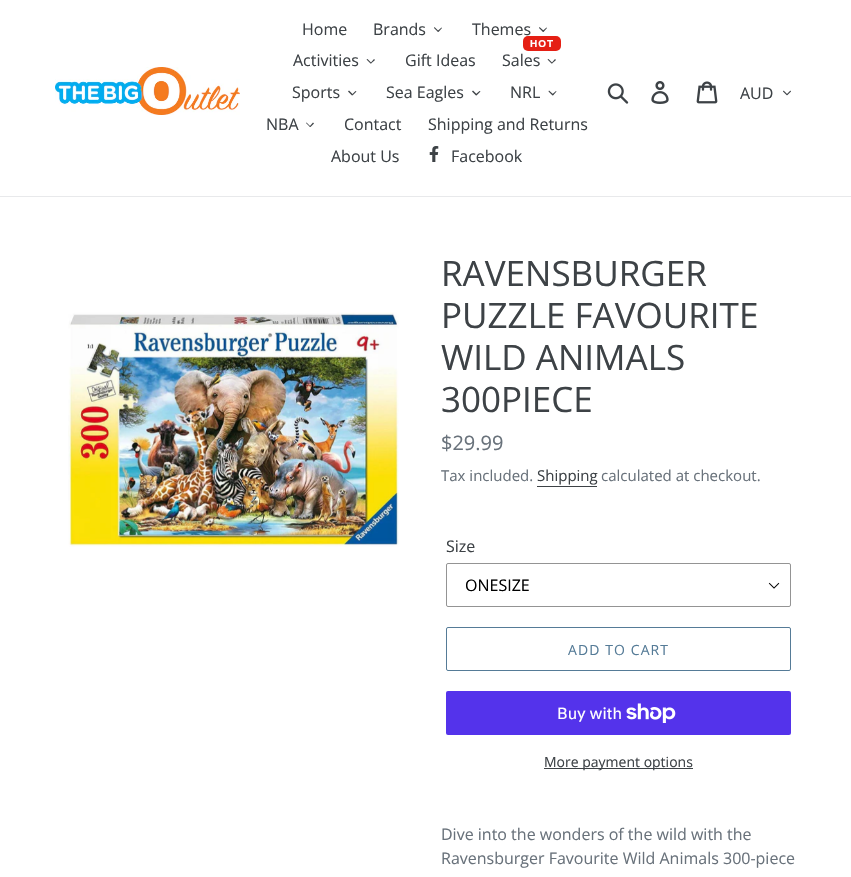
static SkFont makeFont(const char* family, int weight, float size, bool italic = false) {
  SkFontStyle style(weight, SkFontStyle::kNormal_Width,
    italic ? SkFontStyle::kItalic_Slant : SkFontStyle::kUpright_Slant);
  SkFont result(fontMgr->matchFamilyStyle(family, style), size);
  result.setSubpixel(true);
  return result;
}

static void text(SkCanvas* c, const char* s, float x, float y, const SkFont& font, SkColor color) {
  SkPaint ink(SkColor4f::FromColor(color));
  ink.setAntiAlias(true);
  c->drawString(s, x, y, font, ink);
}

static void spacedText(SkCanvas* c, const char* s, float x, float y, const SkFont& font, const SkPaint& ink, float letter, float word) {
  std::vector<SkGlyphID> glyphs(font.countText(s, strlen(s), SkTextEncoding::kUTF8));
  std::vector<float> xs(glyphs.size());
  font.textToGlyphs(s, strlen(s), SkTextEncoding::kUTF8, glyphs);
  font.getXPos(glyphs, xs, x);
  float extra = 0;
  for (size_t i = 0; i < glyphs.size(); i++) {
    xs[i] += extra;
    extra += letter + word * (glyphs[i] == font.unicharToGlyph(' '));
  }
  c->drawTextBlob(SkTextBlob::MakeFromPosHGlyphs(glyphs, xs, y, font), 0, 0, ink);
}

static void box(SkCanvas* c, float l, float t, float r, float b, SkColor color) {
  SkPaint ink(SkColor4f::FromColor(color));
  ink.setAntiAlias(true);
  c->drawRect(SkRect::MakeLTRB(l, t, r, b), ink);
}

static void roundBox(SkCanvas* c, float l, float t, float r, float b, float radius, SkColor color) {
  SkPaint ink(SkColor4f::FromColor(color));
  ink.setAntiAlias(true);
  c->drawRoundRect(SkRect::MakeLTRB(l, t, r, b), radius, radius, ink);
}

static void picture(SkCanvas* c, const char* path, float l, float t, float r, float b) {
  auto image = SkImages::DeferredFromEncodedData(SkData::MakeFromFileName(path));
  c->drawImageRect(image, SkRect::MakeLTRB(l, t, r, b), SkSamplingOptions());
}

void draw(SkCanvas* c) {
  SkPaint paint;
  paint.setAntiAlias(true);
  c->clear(0xffffffff);
  box(c, 0, 196, 851, 197, 0xffe8e9eb);
  picture(c, "img_01.png", 55, 67, 240, 115);
  SkFont face1 = makeFont("Open Sans", 400, 16);
  text(c, "Home", 302, 35, face1, 0xff3d4246);
  text(c, "Brands", 373, 35, face1, 0xff3d4246);
  paint.setColor(0xff3d4246);
  c->drawPath(SkPathBuilder().moveTo(441.5f, 27.5f).lineTo(442, 28).lineTo(438.5f, 32).lineTo(437.5f, 31).close().detach(), paint);
  c->drawPath(SkPathBuilder().moveTo(434.5f, 27).lineTo(438.5f, 31).lineTo(438, 32).lineTo(434, 28).close().detach(), paint);
  text(c, "Themes", 472, 35, face1, 0xff3d4246);
  c->drawPath(SkPathBuilder().moveTo(546.5f, 27.5f).lineTo(547, 28).lineTo(543.5f, 32).lineTo(542.5f, 31).close().detach(), paint);
  c->drawPath(SkPathBuilder().moveTo(539.5f, 27).lineTo(544, 31).lineTo(543, 32).lineTo(539, 28).close().detach(), paint);
  text(c, "Activities", 293, 66, face1, 0xff3d4246);
  c->drawPath(SkPathBuilder().moveTo(374, 59).lineTo(375, 60).lineTo(371, 63.5f).lineTo(370.5f, 63).close().detach(), paint);
  c->drawPath(SkPathBuilder().moveTo(367.5f, 59).lineTo(371.5f, 63).lineTo(370.5f, 63.5f).lineTo(366.5f, 59.5f).close().detach(), paint);
  text(c, "Gift Ideas", 405, 66, face1, 0xff3d4246);
  roundBox(c, 523, 36, 561, 51, 5, 0xffe51f14);
  SkFont face2 = makeFont("Liberation Sans", 700, 10);
  paint.setColor(0xffffffff);
  spacedText(c, "HOT", 530, 47, face2, paint, 1, 0);
  text(c, "Sales", 502, 66, face1, 0xff3d4246);
  paint.setColor(0xff3d4246);
  c->drawPath(SkPathBuilder().moveTo(555, 59).lineTo(556, 60).lineTo(552, 63.5f).lineTo(551.5f, 63).close().detach(), paint);
  c->drawPath(SkPathBuilder().moveTo(548.5f, 59).lineTo(552.5f, 63).lineTo(551.5f, 63.5f).lineTo(547.5f, 59.5f).close().detach(), paint);
  text(c, "Sports", 292, 98, face1, 0xff3d4246);
  c->drawPath(SkPathBuilder().moveTo(355.5f, 91).lineTo(356.5f, 91.5f).lineTo(352.5f, 95.5f).lineTo(352, 94.5f).close().detach(), paint);
  c->drawPath(SkPathBuilder().moveTo(349, 90.5f).lineTo(353, 94.5f).lineTo(352, 95.5f).lineTo(348, 91.5f).close().detach(), paint);
  text(c, "Sea Eagles", 386, 98, face1, 0xff3d4246);
  c->drawPath(SkPathBuilder().moveTo(479.5f, 91).lineTo(480.5f, 91.5f).lineTo(476.5f, 95.5f).lineTo(475.5f, 94.5f).close().detach(), paint);
  c->drawPath(SkPathBuilder().moveTo(473, 90.5f).lineTo(477, 94.5f).lineTo(476, 95.5f).lineTo(472, 91.5f).close().detach(), paint);
  text(c, "NRL", 510, 98, face1, 0xff3d4246);
  c->drawPath(SkPathBuilder().moveTo(556, 91).lineTo(556.5f, 91.5f).lineTo(553, 95.5f).lineTo(552, 94.5f).close().detach(), paint);
  c->drawPath(SkPathBuilder().moveTo(549, 90.5f).lineTo(553.5f, 94.5f).lineTo(552.5f, 95.5f).lineTo(548.5f, 91.5f).close().detach(), paint);
  text(c, "NBA", 266, 130, face1, 0xff3d4246);
  c->drawPath(SkPathBuilder().moveTo(313, 122.5f).lineTo(314, 123.5f).lineTo(310.5f, 127).lineTo(309.5f, 126.5f).close().detach(), paint);
  c->drawPath(SkPathBuilder().moveTo(306.5f, 122.5f).lineTo(310.5f, 126.5f).lineTo(310, 127).lineTo(306, 123).close().detach(), paint);
  text(c, "Contact", 344, 130, face1, 0xff3d4246);
  text(c, "Shipping and Returns", 428, 130, face1, 0xff3d4246);
  text(c, "About Us", 331, 162, face1, 0xff3d4246);
  picture(c, "img_02.png", 429, 146, 439, 162);
  text(c, "Facebook", 451, 162, face1, 0xff3d4246);
  picture(c, "img_03.png", 607, 83, 629, 104);
  picture(c, "img_04.png", 651, 81, 669, 104);
  picture(c, "img_05.png", 696, 81, 718, 104);
  text(c, "AUD", 740, 99, face1, 0xff3d4246);
  picture(c, "img_06.png", 783, 90, 791, 96);
  picture(c, "img_07.png", 68, 312, 399, 547);
  SkFont face3 = makeFont("Open Sans", 400, 35);
  text(c, "RAVENSBURGER", 441, 286, face3, 0xff3d4246);
  text(c, "PUZZLE FAVOURITE", 441, 328, face3, 0xff3d4246);
  text(c, "WILD ANIMALS", 441, 370, face3, 0xff3d4246);
  text(c, "300PIECE", 441, 412, face3, 0xff3d4246);
  SkFont face4 = makeFont("Open Sans", 400, 20);
  text(c, "$29.99", 441, 450, face4, 0xff69727b);
  SkFont face5 = makeFont("Open Sans", 400, 15);
  text(c, "Tax included.", 441, 481, face5, 0xff69727b);
  text(c, "Shipping", 537, 481, face5, 0xff3d4246);
  box(c, 537, 486, 597, 487, 0xff3d4246);
  text(c, "calculated at checkout.", 601, 481, face5, 0xff69727b);
  text(c, "Size", 446, 552, face1, 0xff3d4246);
  picture(c, "img_08.png", 768, 582, 780, 589);
  paint.setStyle(SkPaint::kStroke_Style);
  paint.setStrokeWidth(1);
  paint.setColor(0xff949494);
  c->drawRoundRect(SkRect::MakeLTRB(446.5f, 563.5f, 790.5f, 606.5f), 1.5f, 1.5f, paint);
  text(c, "ONESIZE", 465, 591, face1, 0xff000000);
  paint.setColor(0xff557b97);
  c->drawRoundRect(SkRect::MakeLTRB(446.5f, 627.5f, 790.5f, 670.5f), 1.5f, 1.5f, paint);
  SkFont face6 = makeFont("Open Sans", 400, 14);
  paint.setStyle(SkPaint::kFill_Style);
  spacedText(c, "ADD TO CART", 568, 655, face6, paint, 1.1f, 0);
  roundBox(c, 446, 691, 791, 735, 2, 0xff5433eb);
  SkFont face7 = makeFont("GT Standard", 400, 16);
  text(c, "Buy with", 557, 719, face7, 0xffffffff);
  picture(c, "img_09.png", 626, 703, 676, 723);
  box(c, 544, 768, 693, 769, 0xff3d4246);
  text(c, "More payment options", 544, 767, face6, 0xff3d4246);
  text(c, "Dive into the wonders of the wild with the", 441, 840, face1, 0xff69727b);
  text(c, "Ravensburger Favourite Wild Animals 300-piece", 441, 864, face1, 0xff69727b);
}
